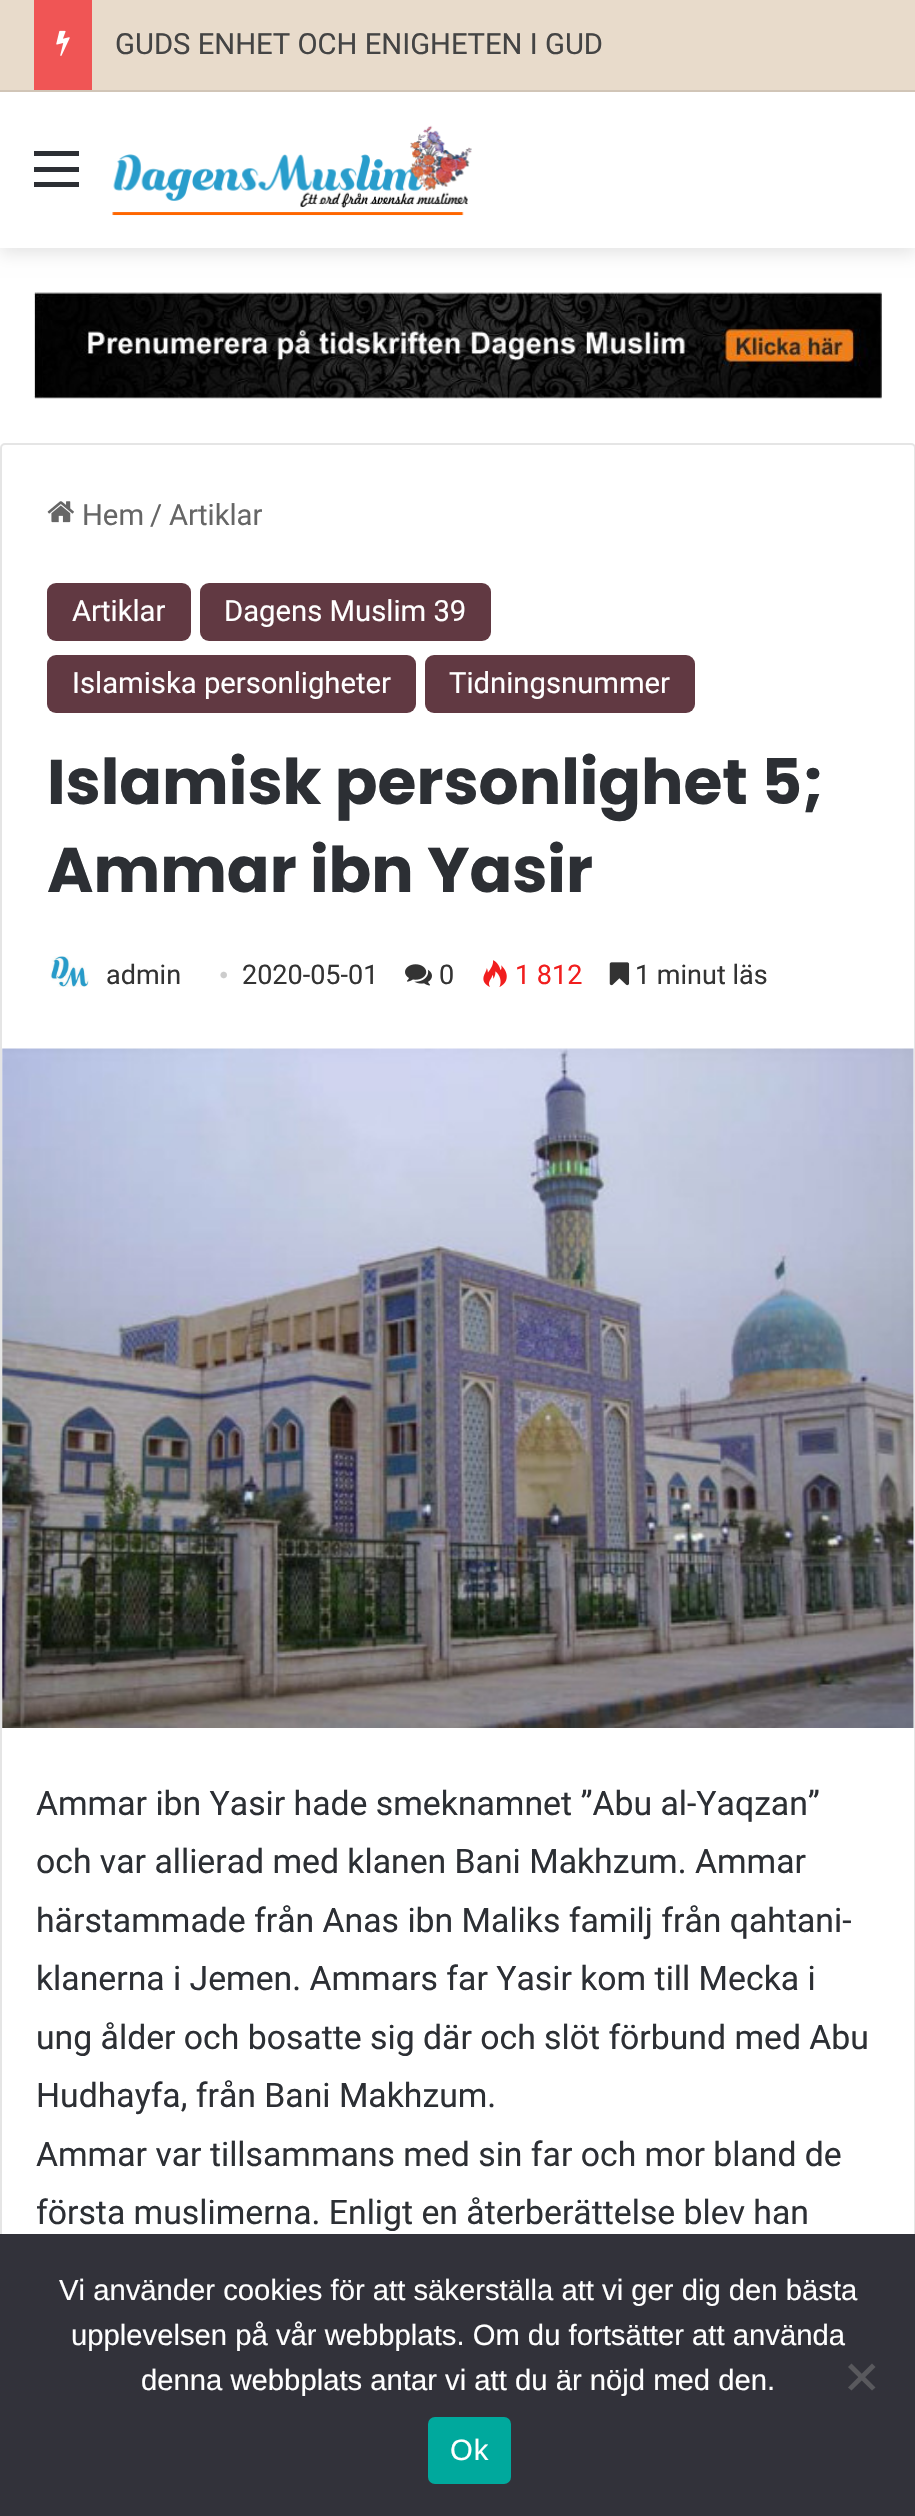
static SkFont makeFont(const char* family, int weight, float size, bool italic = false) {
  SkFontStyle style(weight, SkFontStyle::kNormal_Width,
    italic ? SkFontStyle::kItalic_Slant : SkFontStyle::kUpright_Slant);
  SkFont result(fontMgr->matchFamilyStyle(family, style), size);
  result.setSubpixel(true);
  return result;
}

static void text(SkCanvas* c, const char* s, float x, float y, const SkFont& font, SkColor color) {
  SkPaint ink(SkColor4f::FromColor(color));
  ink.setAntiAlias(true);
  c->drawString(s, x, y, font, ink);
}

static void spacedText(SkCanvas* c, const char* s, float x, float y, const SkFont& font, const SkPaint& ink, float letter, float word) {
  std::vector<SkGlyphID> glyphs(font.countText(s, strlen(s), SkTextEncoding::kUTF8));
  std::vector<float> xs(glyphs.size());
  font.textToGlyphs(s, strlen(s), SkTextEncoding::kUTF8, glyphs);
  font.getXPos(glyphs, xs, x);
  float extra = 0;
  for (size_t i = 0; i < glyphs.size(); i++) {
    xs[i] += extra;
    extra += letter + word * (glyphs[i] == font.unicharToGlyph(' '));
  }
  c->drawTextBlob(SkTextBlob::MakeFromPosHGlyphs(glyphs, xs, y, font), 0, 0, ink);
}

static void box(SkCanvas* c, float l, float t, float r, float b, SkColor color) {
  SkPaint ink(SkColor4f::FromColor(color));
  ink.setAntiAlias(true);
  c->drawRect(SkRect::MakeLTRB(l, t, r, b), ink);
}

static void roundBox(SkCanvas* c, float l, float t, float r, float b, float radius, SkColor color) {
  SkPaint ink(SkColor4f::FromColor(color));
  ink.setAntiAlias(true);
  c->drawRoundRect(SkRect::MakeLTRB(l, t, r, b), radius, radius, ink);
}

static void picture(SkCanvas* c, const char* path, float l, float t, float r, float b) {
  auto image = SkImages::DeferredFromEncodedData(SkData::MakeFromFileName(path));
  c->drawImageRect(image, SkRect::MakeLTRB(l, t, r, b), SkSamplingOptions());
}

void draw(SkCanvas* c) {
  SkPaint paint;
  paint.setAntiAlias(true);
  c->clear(0xffffffff);
  paint.setColor(0x1a000000);
  paint.setMaskFilter(SkMaskFilter::MakeBlur(kNormal_SkBlurStyle, 8));
  c->drawRect(SkRect::MakeLTRB(0, 99, 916, 254), paint);
  paint.setMaskFilter(nullptr);
  box(c, 0, 0, 915, 90, 0xffe8dbcb);
  box(c, 0, 90, 915, 92, 0xffd1c5b7);
  box(c, 34, 0, 92, 90, 0xfff05555);
  picture(c, "img_01.png", 56, 30, 70, 56);
  SkFont face1 = makeFont("Roboto", 400, 29.25f);
  text(c, "GUDS ENHET OCH ENIGHETEN I GUD", 115, 54, face1, 0xff444444);
  box(c, 0, 92, 915, 248, 0xffffffff);
  box(c, 34, 167, 79, 172, 0xff2c2f34);
  box(c, 34, 151, 79, 156, 0xff2c2f34);
  box(c, 34, 182, 79, 187, 0xff2c2f34);
  picture(c, "img_02.png", 112, 125, 472, 216);
  picture(c, "img_03.png", 33, 292, 882, 399);
  paint.setStyle(SkPaint::kStroke_Style);
  paint.setStrokeWidth(2);
  paint.setColor(0xffe5e5e5);
  c->drawRoundRect(SkRect::MakeLTRB(1, 444, 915, 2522), 4, 4, paint);
  picture(c, "img_04.png", 47, 501, 74, 523);
  text(c, "Hem", 82, 525, face1, 0xff666666);
  text(c, "/", 150, 525, face1, 0xff666666);
  text(c, "Artiklar", 169, 525, face1, 0xff666666);
  roundBox(c, 47, 583, 191, 641, 9, 0xff613942);
  text(c, "Artiklar", 72, 621, face1, 0xffffffff);
  roundBox(c, 200, 583, 491, 641, 9, 0xff613942);
  text(c, "Dagens Muslim 39", 224, 621, face1, 0xffffffff);
  roundBox(c, 47, 655, 416, 713, 9, 0xff613942);
  text(c, "Islamiska personligheter", 72, 693, face1, 0xffffffff);
  roundBox(c, 425, 655, 695, 713, 9, 0xff613942);
  text(c, "Tidningsnummer", 449, 693, face1, 0xffffffff);
  SkFont face2 = makeFont("Poppins", 700, 63);
  text(c, "Islamisk personlighet 5;", 47, 804, face2, 0xff2c2f34);
  text(c, "Ammar ibn Yasir", 47, 892, face2, 0xff2c2f34);
  picture(c, "img_05.png", 50, 956, 89, 987);
  SkFont face3 = makeFont("Roboto", 400, 27);
  text(c, "admin", 106, 984, face3, 0xff333333);
  SkFont face4 = makeFont("Liberation Serif", 400, 27);
  text(c, "•", 219, 984, face4, 0xffcccccc);
  text(c, "2020-05-01", 242, 984, face3, 0xff333333);
  picture(c, "img_06.png", 405, 964, 432, 986);
  text(c, "0", 439, 984, face3, 0xff333333);
  picture(c, "img_07.png", 483, 960, 507, 987);
  text(c, "1 812", 515, 984, face3, 0xfff11e1e);
  picture(c, "img_08.png", 609, 962, 630, 986);
  text(c, "1 minut läs", 635, 984, face3, 0xff333333);
  picture(c, "img_09.png", 2, 1048, 914, 1728);
  SkFont face5 = makeFont("Roboto", 400, 33.75f);
  text(c, "Ammar ibn Yasir hade smeknamnet ”Abu al-Yaqzan”", 36, 1815, face5, 0xff2c2f34);
  text(c, "och var allierad med klanen Bani Makhzum. Ammar", 36, 1873, face5, 0xff2c2f34);
  text(c, "härstammade från Anas ibn Maliks familj från qahtani-", 36, 1932, face5, 0xff2c2f34);
  text(c, "klanerna i Jemen. Ammars far Yasir kom till Mecka i", 36, 1990, face5, 0xff2c2f34);
  text(c, "ung ålder och bosatte sig där och slöt förbund med Abu", 36, 2049, face5, 0xff2c2f34);
  text(c, "Hudhayfa, från Bani Makhzum.", 36, 2107, face5, 0xff2c2f34);
  text(c, "Ammar var tillsammans med sin far och mor bland de", 36, 2166, face5, 0xff2c2f34);
  text(c, "första muslimerna. Enligt en återberättelse blev han", 36, 2224, face5, 0xff2c2f34);
  box(c, 0, 2234, 915, 2516, 0xff32323a);
  SkFont face6 = makeFont("Liberation Sans", 400, 29.25f);
  text(c, "Vi använder cookies för att säkerställa att vi ger dig den bästa", 59, 2300, face6, 0xffffffff);
  text(c, "upplevelsen på vår webbplats. Om du fortsätter att använda", 71, 2345, face6, 0xffffffff);
  text(c, "denna webbplats antar vi att du är nöjd med den.", 141, 2390, face6, 0xffffffff);
  paint.setStyle(SkPaint::kFill_Style);
  paint.setColor(0xff59595d);
  c->drawPath(SkPathBuilder().moveTo(872, 2363.5f).lineTo(875.5f, 2367).lineTo(851.5f, 2390.5f).lineTo(848, 2387.5f).close().detach(), paint);
  c->drawPath(SkPathBuilder().moveTo(848, 2367).lineTo(851.5f, 2363.5f).lineTo(875.5f, 2387.5f).lineTo(872, 2390.5f).close().detach(), paint);
  roundBox(c, 428, 2417, 511, 2484, 7, 0xff00a99d);
  paint.setColor(0xffffffff);
  spacedText(c, "Ok", 450, 2460, face6, paint, 1, 0);
}
